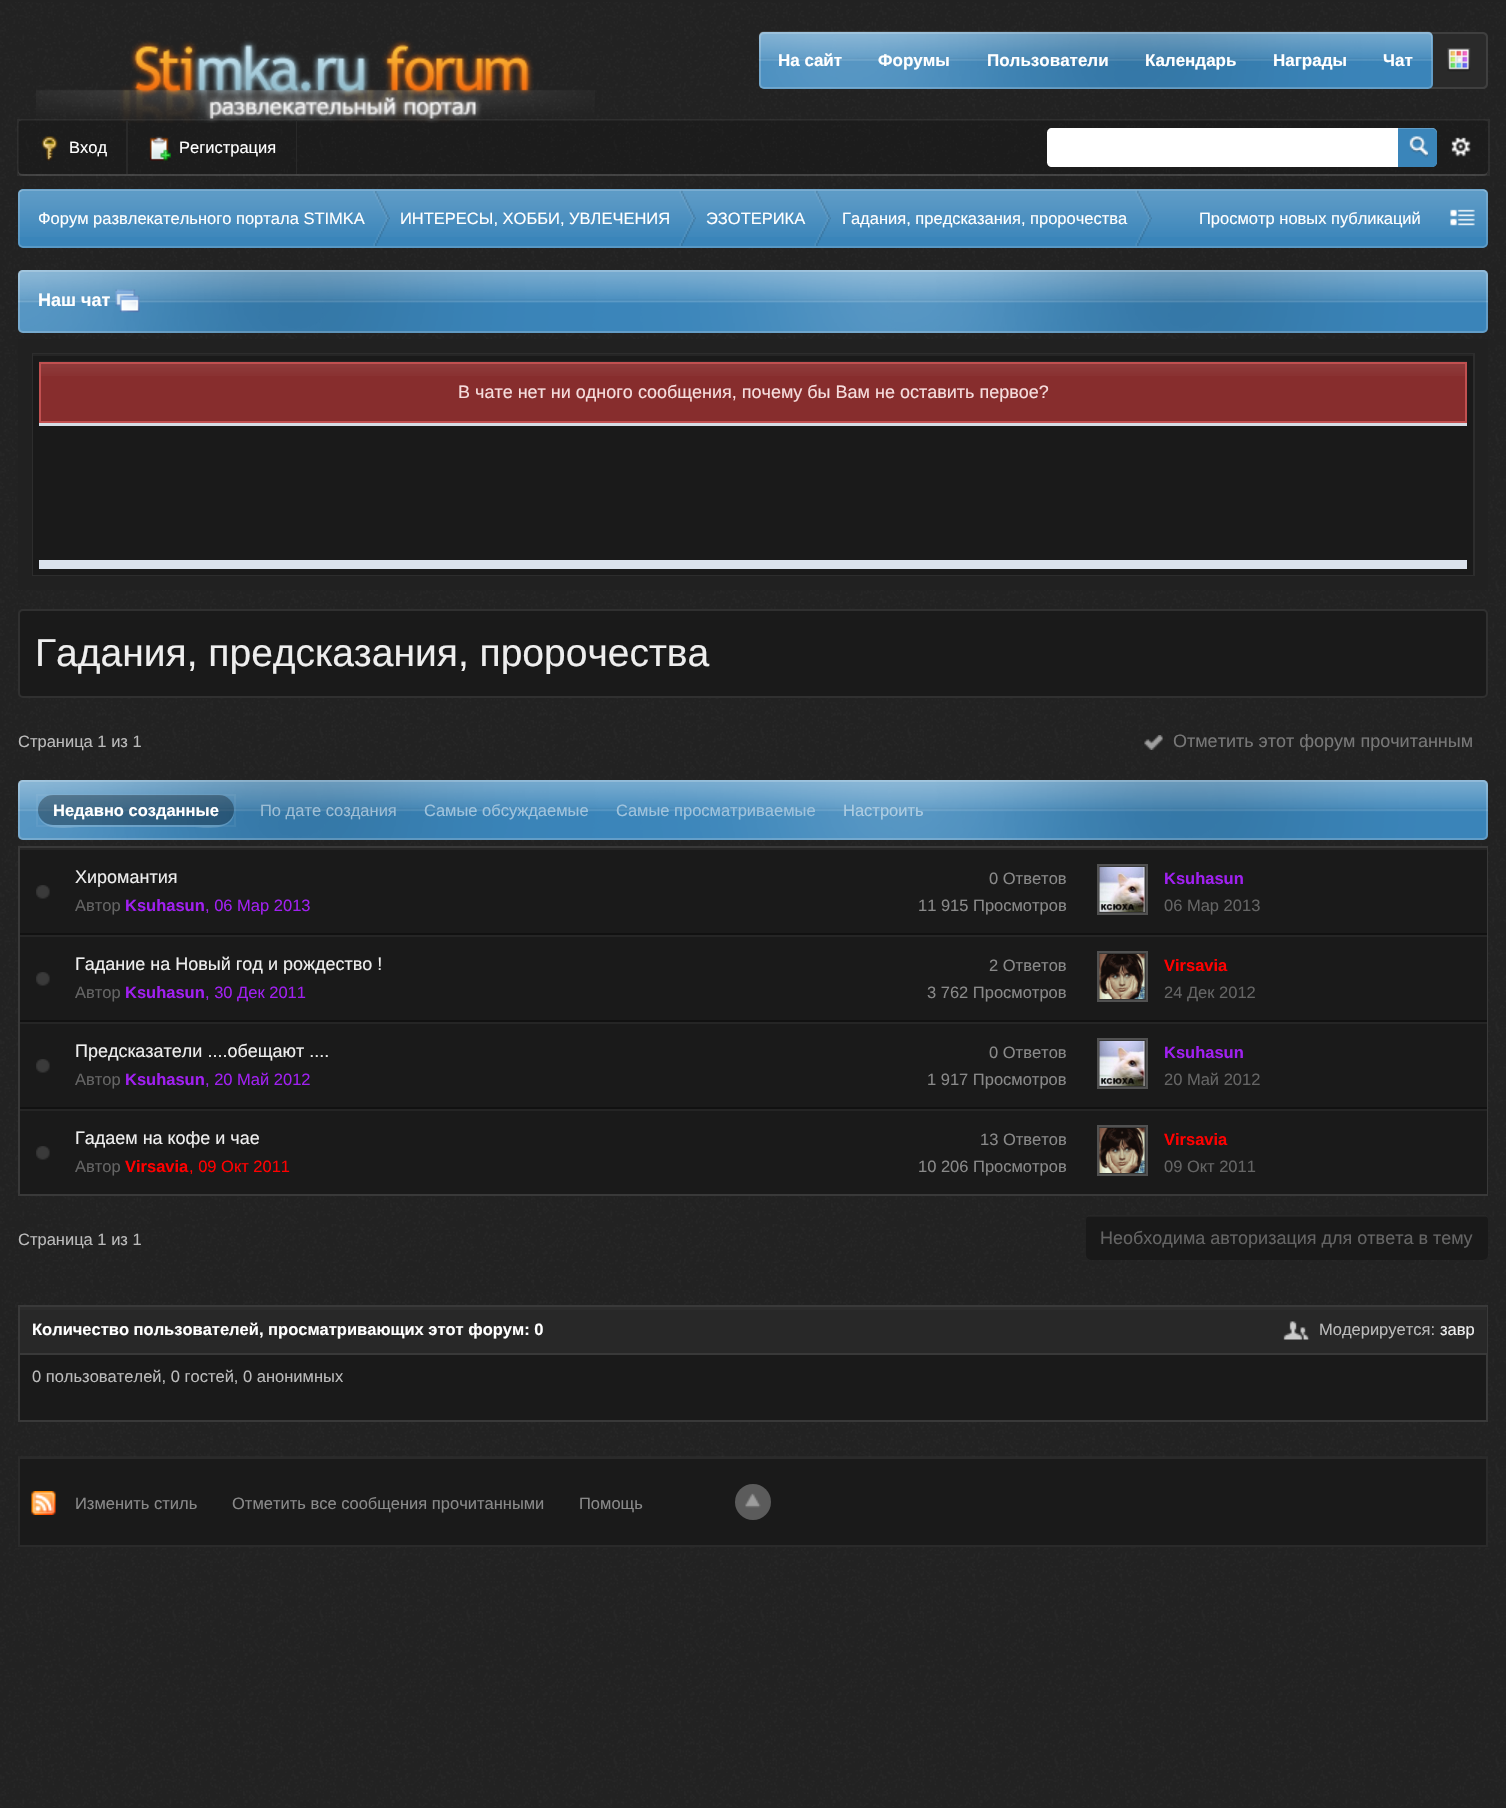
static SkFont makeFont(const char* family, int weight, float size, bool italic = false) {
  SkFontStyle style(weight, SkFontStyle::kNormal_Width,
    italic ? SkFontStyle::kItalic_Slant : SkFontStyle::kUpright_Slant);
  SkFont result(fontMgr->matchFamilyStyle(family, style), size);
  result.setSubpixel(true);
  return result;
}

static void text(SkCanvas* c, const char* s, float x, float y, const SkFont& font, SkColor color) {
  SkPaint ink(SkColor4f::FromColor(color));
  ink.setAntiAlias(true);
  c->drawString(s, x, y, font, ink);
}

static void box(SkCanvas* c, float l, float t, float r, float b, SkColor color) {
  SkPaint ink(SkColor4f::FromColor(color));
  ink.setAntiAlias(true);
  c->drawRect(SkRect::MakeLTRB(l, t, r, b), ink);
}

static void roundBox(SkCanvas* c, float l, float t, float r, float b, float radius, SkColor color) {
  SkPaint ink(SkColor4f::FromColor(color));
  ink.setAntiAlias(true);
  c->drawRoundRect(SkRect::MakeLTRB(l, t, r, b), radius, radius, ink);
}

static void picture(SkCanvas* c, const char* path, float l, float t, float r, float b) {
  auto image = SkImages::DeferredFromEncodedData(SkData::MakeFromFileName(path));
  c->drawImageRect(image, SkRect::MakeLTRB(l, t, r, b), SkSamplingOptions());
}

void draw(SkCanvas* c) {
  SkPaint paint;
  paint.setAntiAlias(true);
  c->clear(0xff222222);
  picture(c, "img_01.png", 0, 2, 1506, 1807);
  paint.setColor(0x1affffff);
  c->drawPath(SkPathBuilder().moveTo(18, 170).cubicTo(18, 173, 19, 176, 23, 176).lineTo(1483, 176).cubicTo(1487, 176, 1488, 173, 1488, 170).cubicTo(1488, 172, 1486, 174, 1484, 174).lineTo(22, 174).cubicTo(20, 174, 18, 172, 18, 170).close().detach(), paint);
  paint.setStyle(SkPaint::kStroke_Style);
  paint.setStrokeWidth(2);
  paint.setColor(0x0dffffff);
  c->drawRect(SkRect::MakeLTRB(18, 120, 1489, 175), paint);
  roundBox(c, 18, 120, 1488, 174, 5, 0x33000000);
  picture(c, "img_02.png", 36, 40, 595, 123);
  paint.setStyle(SkPaint::kFill_Style);
  paint.setColor(0xff2a2a2a);
  c->drawPath(SkPathBuilder().moveTo(1430, 32).lineTo(1483, 32).cubicTo(1486, 32, 1488, 34, 1488, 37).lineTo(1488, 84).cubicTo(1488, 87, 1486, 89, 1483, 89).lineTo(1430, 89).close().detach(), paint);
  picture(c, "img_04.png", 1447, 48, 1471, 72);
  paint.setStyle(SkPaint::kStroke_Style);
  paint.setColor(0xff3f3f3f);
  c->drawPath(SkPathBuilder().moveTo(1431, 33).lineTo(1483, 33).cubicTo(1485, 33, 1487, 35, 1487, 37).lineTo(1487, 84).cubicTo(1487, 86, 1485, 88, 1483, 88).lineTo(1431, 88).close().detach(), paint);
  roundBox(c, 759, 32, 1433, 89, 5, 0xff3a85ba);
  picture(c, "img_03.png", 759, 31, 1433, 89);
  paint.setColor(0x33ffffff);
  c->drawRoundRect(SkRect::MakeLTRB(760, 33, 1432, 88), 4, 4, paint);
  SkFont face1 = makeFont("Liberation Sans", 700, 17);
  text(c, "На сайт", 778, 66, face1, 0xffffffff);
  text(c, "Форумы", 878, 66, face1, 0xffffffff);
  text(c, "Пользователи", 987, 66, face1, 0xffffffff);
  text(c, "Календарь", 1145, 66, face1, 0xffffffff);
  text(c, "Награды", 1273, 66, face1, 0xffffffff);
  text(c, "Чат", 1383, 66, face1, 0xffffffff);
  box(c, 126, 120, 128, 174, 0xff292929);
  picture(c, "img_05.png", 41, 136, 58, 161);
  SkFont face2 = makeFont("Liberation Sans", 400, 16.5f);
  text(c, "Вход", 69, 153, face2, 0xffffffff);
  box(c, 296, 120, 297, 174, 0xff292929);
  picture(c, "img_06.png", 149, 136, 171, 161);
  text(c, "Регистрация", 179, 153, face2, 0xffffffff);
  paint.setStyle(SkPaint::kFill_Style);
  paint.setColor(0xffffffff);
  c->drawPath(SkPathBuilder().moveTo(1052, 128).lineTo(1431, 128).cubicTo(1434.5f, 128, 1437, 130.5f, 1437, 134).lineTo(1437, 161).cubicTo(1437, 164.5f, 1434.5f, 167, 1431, 167).lineTo(1052, 167).cubicTo(1049, 167, 1047, 165, 1047, 162).lineTo(1047, 133).cubicTo(1047, 130, 1049, 128, 1052, 128).close().detach(), paint);
  paint.setColor(0xff3a85ba);
  c->drawPath(SkPathBuilder().moveTo(1398, 128).lineTo(1432, 128).cubicTo(1435, 128, 1437, 130, 1437, 133).lineTo(1437, 162).cubicTo(1437, 165, 1435, 167, 1432, 167).lineTo(1398, 167).close().detach(), paint);
  picture(c, "img_07.png", 1409, 136, 1428, 158);
  paint.setColor(0x33ffffff);
  c->drawPath(SkPathBuilder().moveTo(1398, 129).lineTo(1432, 129).cubicTo(1435, 129, 1437, 131, 1437, 134).lineTo(1437, 133).cubicTo(1437, 130, 1435, 128, 1432, 128).lineTo(1398, 128).close().detach(), paint);
  picture(c, "img_08.png", 1451, 137, 1471, 157);
  roundBox(c, 18, 189, 1488, 248, 5, 0xff3a85ba);
  picture(c, "img_09.png", 18, 190, 1488, 237);
  paint.setStyle(SkPaint::kStroke_Style);
  paint.setStrokeWidth(1.5f);
  paint.setColor(0x59ffffff);
  c->drawPath(SkPathBuilder().moveTo(20, 191).lineTo(22.5f, 190).lineTo(1483.5f, 190).lineTo(1486, 191).detach(), paint);
  paint.setColor(0x33ffffff);
  c->drawPath(SkPathBuilder().moveTo(1486, 191).lineTo(1487, 193).lineTo(1487, 244).cubicTo(1486.5f, 245.5f, 1485, 246.5f, 1483.5f, 247).lineTo(22.5f, 247).cubicTo(21, 246.5f, 19.5f, 245.5f, 19, 244).lineTo(19, 193).lineTo(20, 191).detach(), paint);
  picture(c, "img_10.png", 373, 191, 390, 246);
  text(c, "Форум развлекательного портала STIMKA", 38, 224, face2, 0xffffffff);
  picture(c, "img_11.png", 679, 190, 696, 246);
  text(c, "ИНТЕРЕСЫ, ХОББИ, УВЛЕЧЕНИЯ", 400, 224, face2, 0xffffffff);
  picture(c, "img_11.png", 814, 190, 831, 246);
  text(c, "ЭЗОТЕРИКА", 706, 224, face2, 0xffffffff);
  picture(c, "img_11.png", 1135, 190, 1152, 246);
  text(c, "Гадания, предсказания, пророчества", 842, 224, face2, 0xffffffff);
  text(c, "Просмотр новых публикаций", 1199, 224, face2, 0xffffffff);
  picture(c, "img_12.png", 1450, 209, 1475, 226);
  roundBox(c, 18, 270, 1488, 333, 5, 0xff3a85ba);
  picture(c, "img_13.png", 18, 270, 1488, 333);
  paint.setStrokeWidth(2);
  c->drawRoundRect(SkRect::MakeLTRB(19, 271, 1487, 332), 4, 4, paint);
  SkFont face3 = makeFont("Liberation Sans", 700, 18);
  text(c, "Наш чат", 38, 306, face3, 0xffffffff);
  picture(c, "img_14.png", 115, 289, 140, 313);
  box(c, 18, 339, 1488, 590, 0xff212121);
  paint.setColor(0xff2d2d2d);
  c->drawRect(SkRect::MakeLTRB(33, 354, 1474, 575), paint);
  box(c, 33, 356, 1473, 575, 0xff1a1a1a);
  box(c, 33, 354, 1473, 356, 0xff252525);
  box(c, 41, 364, 1465, 421, 0xff872d2d);
  picture(c, "img_15.png", 39, 361, 1467, 376);
  paint.setColor(0xffc15050);
  c->drawRect(SkRect::MakeLTRB(40, 363, 1466, 422), paint);
  SkFont face4 = makeFont("Liberation Sans", 400, 18);
  text(c, "В чате нет ни одного сообщения, почему бы Вам не оставить первое?", 458, 398, face4, 0xfff6dddd);
  box(c, 39, 423, 1467, 426, 0xffd5dde5);
  box(c, 39, 560, 1467, 569, 0xffdbe2ec);
  paint.setStyle(SkPaint::kFill_Style);
  paint.setColor(0xff1a1a1a);
  c->drawRoundRect(SkRect::MakeLTRB(19, 610, 1487, 697), 4, 4, paint);
  paint.setStyle(SkPaint::kStroke_Style);
  paint.setColor(0xff303030);
  c->drawRoundRect(SkRect::MakeLTRB(19, 610, 1487, 697), 4, 4, paint);
  SkFont face5 = makeFont("Liberation Sans", 400, 39);
  text(c, "Гадания, предсказания, пророчества", 35, 666, face5, 0xffeeeeee);
  text(c, "Страница 1 из 1", 18, 747, face2, 0xffbbbbbb);
  picture(c, "img_16.png", 1144, 735, 1163, 750);
  text(c, "Отметить этот форум прочитанным", 1173, 747, face4, 0xff777777);
  roundBox(c, 18, 780, 1488, 840, 5, 0xff3a85ba);
  picture(c, "img_17.png", 18, 780, 1488, 840);
  paint.setColor(0x33ffffff);
  c->drawRoundRect(SkRect::MakeLTRB(19, 781, 1487, 839), 4, 4, paint);
  paint.setColor(0x0dffffff);
  c->drawRect(SkRect::MakeLTRB(37, 795, 235, 826), paint);
  paint.setStyle(SkPaint::kFill_Style);
  paint.setColor(0x29ffffff);
  c->drawPath(SkPathBuilder().moveTo(38, 815).cubicTo(42, 833, 70, 827, 81, 827).lineTo(191, 827).cubicTo(202, 827, 235, 833, 234, 811).cubicTo(233, 819, 227, 825, 219, 825).lineTo(52, 825).cubicTo(46, 825, 40, 821, 38, 815).close().detach(), paint);
  roundBox(c, 38, 795, 234, 825, 15, 0x4d000000);
  SkFont face6 = makeFont("Liberation Sans", 700, 16.5f);
  text(c, "Недавно созданные", 53, 816, face6, 0xffffffff);
  text(c, "По дате создания", 260, 816, face2, 0xff9ebed5);
  text(c, "Самые обсуждаемые", 424, 816, face2, 0xffa0c3dc);
  text(c, "Самые просматриваемые", 616, 816, face2, 0xffa0c3dc);
  text(c, "Настроить", 843, 816, face2, 0xffaecde2);
  paint.setStyle(SkPaint::kStroke_Style);
  paint.setColor(0xff393939);
  c->drawRect(SkRect::MakeLTRB(19, 847, 1487, 1195), paint);
  box(c, 20, 850, 1487, 1194, 0xff1a1a1a);
  box(c, 20, 848, 1487, 850, 0xff252525);
  box(c, 20, 933, 1487, 935, 0xff111111);
  picture(c, "img_18.png", 36, 885, 50, 899);
  text(c, "Хиромантия", 75, 883, face4, 0xffeeeeee);
  text(c, "Автор", 75, 911, face2, 0xff646464);
  text(c, "Ksuhasun", 125, 911, face6, 0xffa020f0);
  text(c, ", 06 Мар 2013", 205, 911, face2, 0xffa020f0);
  text(c, "0 Ответов", 989, 884, face2, 0xff898989);
  text(c, "11 915 Просмотров", 918, 911, face2, 0xff898989);
  paint.setStyle(SkPaint::kFill_Style);
  c->drawRect(SkRect::MakeLTRB(1098, 865, 1147, 914), paint);
  paint.setStyle(SkPaint::kStroke_Style);
  paint.setColor(0xff515151);
  c->drawRect(SkRect::MakeLTRB(1098, 865, 1147, 914), paint);
  picture(c, "img_19.png", 1099, 867, 1145, 912);
  text(c, "Ksuhasun", 1164, 884, face6, 0xffa020f0);
  text(c, "06 Мар 2013", 1164, 911, face2, 0xff646464);
  box(c, 20, 935, 1487, 937, 0xff252525);
  box(c, 20, 1020, 1487, 1022, 0xff111111);
  picture(c, "img_18.png", 36, 972, 50, 986);
  text(c, "Гадание на Новый год и рождество !", 75, 970, face4, 0xffeeeeee);
  text(c, "Автор", 75, 998, face2, 0xff646464);
  text(c, "Ksuhasun", 125, 998, face6, 0xffa020f0);
  text(c, ", 30 Дек 2011", 205, 998, face2, 0xffa020f0);
  text(c, "2 Ответов", 989, 971, face2, 0xff898989);
  text(c, "3 762 Просмотров", 927, 998, face2, 0xff898989);
  paint.setStyle(SkPaint::kFill_Style);
  paint.setColor(0xff393939);
  c->drawRect(SkRect::MakeLTRB(1098, 952, 1147, 1001), paint);
  paint.setStyle(SkPaint::kStroke_Style);
  paint.setColor(0xff515151);
  c->drawRect(SkRect::MakeLTRB(1098, 952, 1147, 1001), paint);
  picture(c, "img_20.png", 1099, 954, 1145, 999);
  text(c, "Virsavia", 1164, 971, face6, 0xffff0000);
  text(c, "24 Дек 2012", 1164, 998, face2, 0xff646464);
  box(c, 20, 1022, 1487, 1024, 0xff252525);
  box(c, 20, 1107, 1487, 1109, 0xff111111);
  picture(c, "img_18.png", 36, 1059, 50, 1073);
  text(c, "Предсказатели ....обещают ....", 75, 1057, face4, 0xffeeeeee);
  text(c, "Автор", 75, 1085, face2, 0xff646464);
  text(c, "Ksuhasun", 125, 1085, face6, 0xffa020f0);
  text(c, ", 20 Май 2012", 205, 1085, face2, 0xffa020f0);
  text(c, "0 Ответов", 989, 1058, face2, 0xff898989);
  text(c, "1 917 Просмотров", 927, 1085, face2, 0xff898989);
  paint.setStyle(SkPaint::kFill_Style);
  paint.setColor(0xff393939);
  c->drawRect(SkRect::MakeLTRB(1098, 1039, 1147, 1088), paint);
  paint.setStyle(SkPaint::kStroke_Style);
  paint.setColor(0xff515151);
  c->drawRect(SkRect::MakeLTRB(1098, 1039, 1147, 1088), paint);
  picture(c, "img_21.png", 1099, 1041, 1145, 1086);
  text(c, "Ksuhasun", 1164, 1058, face6, 0xffa020f0);
  text(c, "20 Май 2012", 1164, 1085, face2, 0xff646464);
  box(c, 20, 1109, 1487, 1111, 0xff252525);
  picture(c, "img_18.png", 36, 1146, 50, 1160);
  text(c, "Гадаем на кофе и чае", 75, 1144, face4, 0xffeeeeee);
  text(c, "Автор", 75, 1172, face2, 0xff646464);
  text(c, "Virsavia", 125, 1172, face6, 0xffff0000);
  text(c, ", 09 Окт 2011", 189, 1172, face2, 0xffff0000);
  text(c, "13 Ответов", 980, 1145, face2, 0xff898989);
  text(c, "10 206 Просмотров", 918, 1172, face2, 0xff898989);
  paint.setStyle(SkPaint::kFill_Style);
  paint.setColor(0xff393939);
  c->drawRect(SkRect::MakeLTRB(1098, 1126, 1147, 1175), paint);
  paint.setStyle(SkPaint::kStroke_Style);
  paint.setColor(0xff515151);
  c->drawRect(SkRect::MakeLTRB(1098, 1126, 1147, 1175), paint);
  picture(c, "img_22.png", 1099, 1128, 1145, 1173);
  text(c, "Virsavia", 1164, 1145, face6, 0xffff0000);
  text(c, "09 Окт 2011", 1164, 1172, face2, 0xff646464);
  text(c, "Страница 1 из 1", 18, 1245, face2, 0xffbbbbbb);
  roundBox(c, 1086, 1215, 1488, 1260, 5, 0xff191919);
  picture(c, "img_23.png", 1087, 1215, 1487, 1217);
  text(c, "Необходима авторизация для ответа в тему", 1100, 1244, face4, 0xff646464);
  box(c, 20, 1355, 1486, 1420, 0xff1a1a1a);
  paint.setColor(0xff393939);
  c->drawRect(SkRect::MakeLTRB(19, 1306, 1487, 1421), paint);
  box(c, 20, 1307, 1487, 1353, 0xff282828);
  box(c, 20, 1307, 1486, 1310, 0xff2c2c2c);
  box(c, 20, 1353, 1487, 1355, 0xff393939);
  text(c, "Количество пользователей, просматривающих этот форум: 0", 32, 1335, face6, 0xffffffff);
  text(c, "0 пользователей, 0 гостей, 0 анонимных", 32, 1382, face2, 0xffbbbbbb);
  picture(c, "img_24.png", 1283, 1321, 1310, 1340);
  text(c, "Модерируется:", 1319, 1335, face2, 0xffbbbbbb);
  text(c, "завр", 1440, 1335, face2, 0xffeeeeee);
  paint.setStyle(SkPaint::kFill_Style);
  paint.setColor(0xff1a1a1a);
  c->drawRect(SkRect::MakeLTRB(19, 1458, 1487, 1546), paint);
  paint.setStyle(SkPaint::kStroke_Style);
  paint.setColor(0xff2a2a2a);
  c->drawRect(SkRect::MakeLTRB(19, 1458, 1487, 1546), paint);
  picture(c, "img_25.png", 18, 1456, 1488, 1457);
  picture(c, "img_26.png", 31, 1491, 56, 1515);
  text(c, "Изменить стиль", 75, 1509, face2, 0xff898989);
  text(c, "Отметить все сообщения прочитанными", 232, 1509, face2, 0xff898989);
  text(c, "Помощь", 579, 1509, face2, 0xff898989);
  paint.setStyle(SkPaint::kFill_Style);
  paint.setColor(0xff5b5b5b);
  c->drawCircle(753, 1502, 18, paint);
  picture(c, "img_27.png", 745, 1493, 761, 1508);
}
